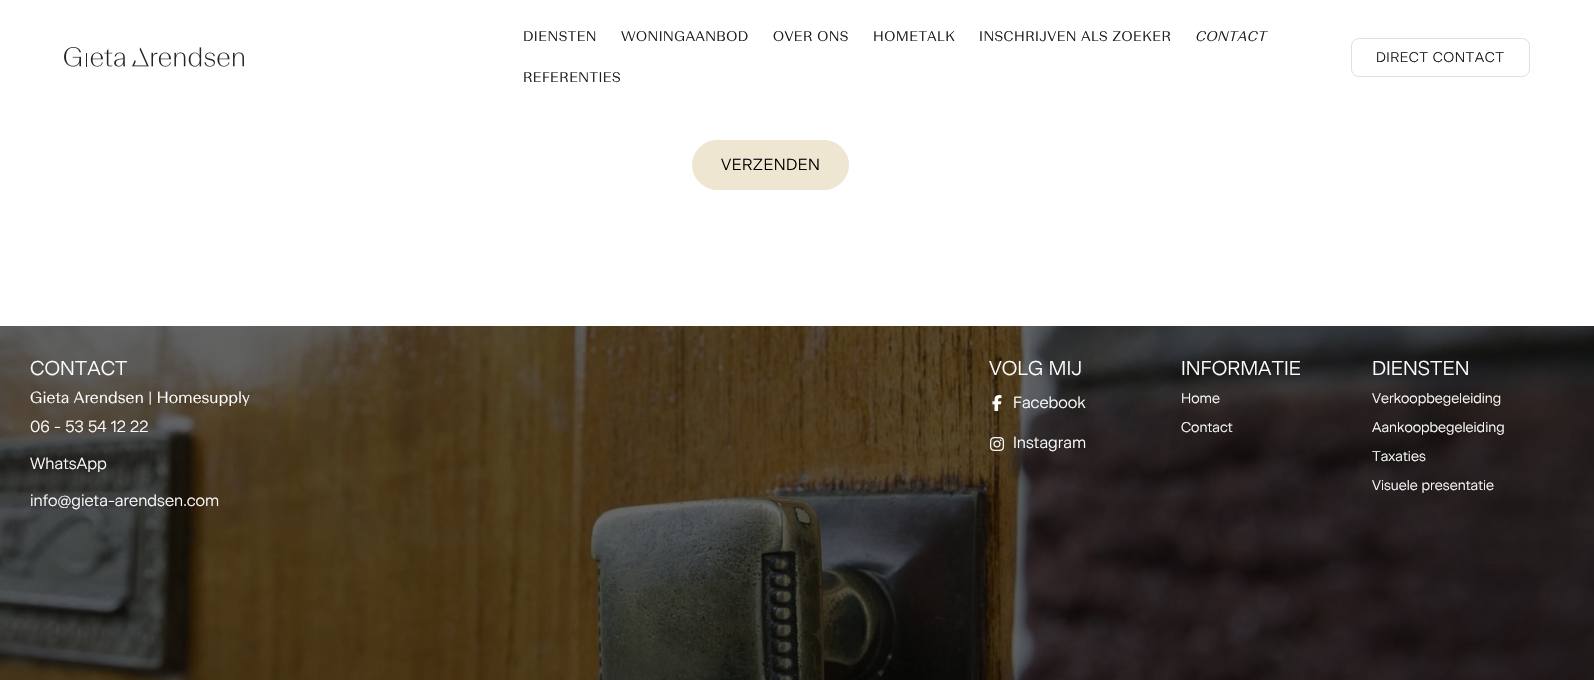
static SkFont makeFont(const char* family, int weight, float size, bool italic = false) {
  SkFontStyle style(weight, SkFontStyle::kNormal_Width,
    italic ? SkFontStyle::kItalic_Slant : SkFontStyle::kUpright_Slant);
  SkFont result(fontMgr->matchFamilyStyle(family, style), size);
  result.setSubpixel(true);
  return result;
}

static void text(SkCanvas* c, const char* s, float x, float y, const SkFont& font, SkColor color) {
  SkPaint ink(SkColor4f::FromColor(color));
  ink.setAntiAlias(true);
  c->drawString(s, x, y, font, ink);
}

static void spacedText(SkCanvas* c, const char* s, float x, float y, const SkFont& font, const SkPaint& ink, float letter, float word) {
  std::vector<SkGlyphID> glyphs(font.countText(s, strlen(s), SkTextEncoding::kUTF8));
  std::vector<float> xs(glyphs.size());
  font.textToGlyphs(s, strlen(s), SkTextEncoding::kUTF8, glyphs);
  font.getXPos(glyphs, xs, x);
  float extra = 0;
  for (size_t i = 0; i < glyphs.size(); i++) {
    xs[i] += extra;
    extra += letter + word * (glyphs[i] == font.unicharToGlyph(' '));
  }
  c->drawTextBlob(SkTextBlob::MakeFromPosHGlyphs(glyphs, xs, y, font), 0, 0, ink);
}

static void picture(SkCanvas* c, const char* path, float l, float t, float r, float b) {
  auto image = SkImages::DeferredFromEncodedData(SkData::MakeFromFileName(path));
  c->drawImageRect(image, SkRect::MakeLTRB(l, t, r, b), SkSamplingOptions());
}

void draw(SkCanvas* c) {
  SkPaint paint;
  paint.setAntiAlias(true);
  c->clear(0xffffffff);
  picture(c, "img_01.png", 64, 47, 244, 67);
  SkFont face1 = makeFont("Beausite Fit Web", 300, 14);
  paint.setColor(0xff191c17);
  spacedText(c, "DIENSTEN", 523, 41, face1, paint, 0.5f, 0);
  spacedText(c, "WONINGAANBOD", 621, 41, face1, paint, 0.5f, 0);
  spacedText(c, "OVER ONS", 773, 41, face1, paint, 0.5f, 0);
  spacedText(c, "HOMETALK", 873, 41, face1, paint, 0.5f, 0);
  spacedText(c, "INSCHRIJVEN ALS ZOEKER", 979, 41, face1, paint, 0.5f, 0);
  SkFont face2 = makeFont("Beausite Fit Web", 300, 14, true);
  spacedText(c, "CONTACT", 1195, 41, face2, paint, 0.5f, 0);
  spacedText(c, "REFERENTIES", 523, 82, face1, paint, 0.5f, 0);
  paint.setStyle(SkPaint::kStroke_Style);
  paint.setStrokeWidth(1);
  paint.setColor(0xffe0e0e0);
  c->drawRoundRect(SkRect::MakeLTRB(1351.5f, 38.5f, 1529.5f, 76.5f), 7.5f, 7.5f, paint);
  SkFont face3 = makeFont("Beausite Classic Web", 300, 14);
  paint.setStyle(SkPaint::kFill_Style);
  paint.setColor(0xff191c17);
  spacedText(c, "DIRECT CONTACT", 1376, 62, face3, paint, 0.5f, 0);
  paint.setColor(0xffefe6d2);
  c->drawRoundRect(SkRect::MakeLTRB(692.5f, 140.5f, 848.5f, 189.5f), 24.5f, 24.5f, paint);
  paint.setStyle(SkPaint::kStroke_Style);
  c->drawRoundRect(SkRect::MakeLTRB(692.5f, 140.5f, 848.5f, 189.5f), 24.5f, 24.5f, paint);
  SkFont face4 = makeFont("Beausite Classic Web", 300, 16);
  paint.setStyle(SkPaint::kFill_Style);
  paint.setColor(0xff000000);
  spacedText(c, "VERZENDEN", 721, 170, face4, paint, 0.5f, 0);
  picture(c, "img_02.png", 0, 326, 1594, 680);
  SkFont face5 = makeFont("Beausite Classic Web", 300, 20);
  text(c, "CONTACT", 30, 375, face5, 0xffffffff);
  SkFont face6 = makeFont("Beausite Fit Web", 300, 16);
  text(c, "Gieta Arendsen | Homesupply", 30, 403, face6, 0xffffffff);
  text(c, "06 - 53 54 12 22", 30, 432, face4, 0xffffffff);
  text(c, "WhatsApp", 30, 469, face4, 0xffffffff);
  text(c, "info@gieta-arendsen.com", 30, 506, face4, 0xffffffff);
  text(c, "VOLG MIJ", 989, 375, face5, 0xffffffff);
  picture(c, "img_03.png", 992, 395, 1002, 411);
  text(c, "Facebook", 1013, 408, face4, 0xffffffff);
  picture(c, "img_04.png", 990, 437, 1004, 451);
  text(c, "Instagram", 1013, 448, face4, 0xffffffff);
  text(c, "INFORMATIE", 1181, 375, face5, 0xffffffff);
  text(c, "Home", 1181, 403, face3, 0xffffffff);
  text(c, "Contact", 1181, 432, face3, 0xffffffff);
  text(c, "DIENSTEN", 1372, 375, face5, 0xffffffff);
  text(c, "Verkoopbegeleiding", 1372, 403, face3, 0xffffffff);
  text(c, "Aankoopbegeleiding", 1372, 432, face3, 0xffffffff);
  text(c, "Taxaties", 1372, 461, face3, 0xffffffff);
  text(c, "Visuele presentatie", 1372, 490, face3, 0xffffffff);
}
